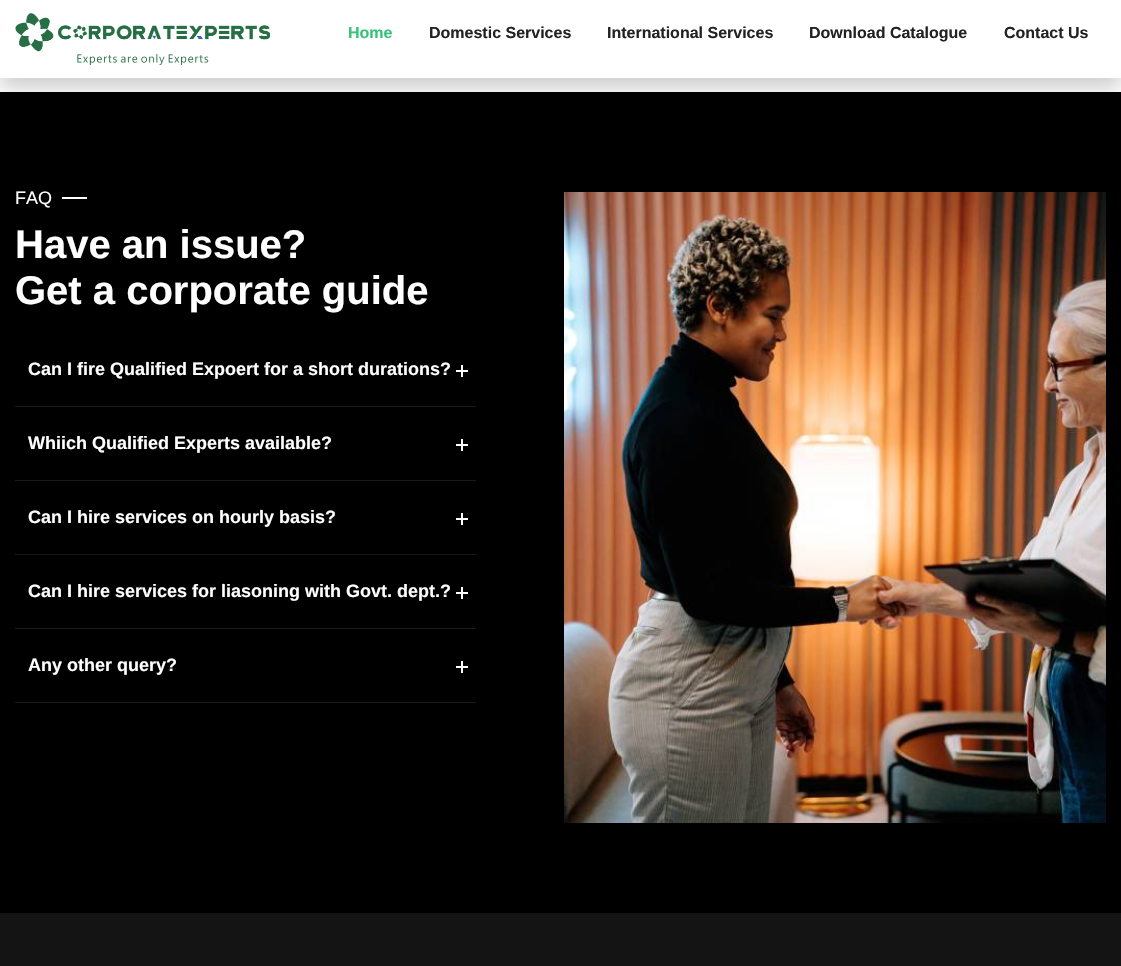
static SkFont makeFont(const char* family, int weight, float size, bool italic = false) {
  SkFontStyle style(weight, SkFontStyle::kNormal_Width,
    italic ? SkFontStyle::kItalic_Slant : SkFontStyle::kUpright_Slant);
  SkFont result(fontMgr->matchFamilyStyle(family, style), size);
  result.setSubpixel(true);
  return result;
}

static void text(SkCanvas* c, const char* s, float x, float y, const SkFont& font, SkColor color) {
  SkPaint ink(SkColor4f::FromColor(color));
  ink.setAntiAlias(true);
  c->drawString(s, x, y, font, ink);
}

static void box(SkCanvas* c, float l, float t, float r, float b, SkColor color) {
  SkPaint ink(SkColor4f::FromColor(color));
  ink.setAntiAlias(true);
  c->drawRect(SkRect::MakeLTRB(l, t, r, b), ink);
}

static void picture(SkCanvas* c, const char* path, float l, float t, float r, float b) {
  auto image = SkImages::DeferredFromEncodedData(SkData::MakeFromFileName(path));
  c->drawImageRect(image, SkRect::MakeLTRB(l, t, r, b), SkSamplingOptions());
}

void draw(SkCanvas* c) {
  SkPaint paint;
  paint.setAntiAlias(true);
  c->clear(0xffffffff);
  box(c, 0, 92, 1121, 913, 0xff000000);
  paint.setColor(0x33000000);
  paint.setMaskFilter(SkMaskFilter::MakeBlur(kNormal_SkBlurStyle, 10));
  c->drawRect(SkRect::MakeLTRB(0, 10, 1121, 88), paint);
  paint.setMaskFilter(nullptr);
  box(c, 0, 0, 1121, 78, 0xffffffff);
  picture(c, "img_01.png", 15, 13, 270, 65);
  SkFont face1 = makeFont("Arimo", 700, 16);
  text(c, "Home", 348, 38, face1, 0xff38c179);
  text(c, "Domestic Services", 429, 38, face1, 0xff222222);
  text(c, "International Services", 607, 38, face1, 0xff222222);
  text(c, "Download Catalogue", 809, 38, face1, 0xff222222);
  text(c, "Contact Us", 1004, 38, face1, 0xff222222);
  SkFont face2 = makeFont("Arimo", 400, 18);
  text(c, "FAQ", 15, 204, face2, 0xffffffff);
  box(c, 62, 197, 87, 199, 0xffffffff);
  SkFont face3 = makeFont("Arimo", 700, 40);
  text(c, "Have an issue?", 15, 258, face3, 0xffffffff);
  text(c, "Get a corporate guide", 15, 304, face3, 0xffffffff);
  box(c, 15, 406, 476, 407, 0xff1a1a1a);
  SkFont face4 = makeFont("Arimo", 700, 18);
  text(c, "Can I fire Qualified Expoert for a short durations?", 28, 375, face4, 0xffffffff);
  box(c, 456, 370, 468, 372, 0xffffffff);
  box(c, 461, 365, 463, 377, 0xffffffff);
  box(c, 15, 480, 476, 481, 0xff1a1a1a);
  text(c, "Whiich Qualified Experts available?", 28, 449, face4, 0xffffffff);
  box(c, 456, 444, 468, 446, 0xffffffff);
  box(c, 461, 439, 463, 451, 0xffffffff);
  box(c, 15, 554, 476, 555, 0xff1a1a1a);
  text(c, "Can I hire services on hourly basis?", 28, 523, face4, 0xffffffff);
  box(c, 456, 518, 468, 520, 0xffffffff);
  box(c, 461, 513, 463, 525, 0xffffffff);
  box(c, 15, 628, 476, 629, 0xff1a1a1a);
  text(c, "Can I hire services for liasoning with Govt. dept.?", 28, 597, face4, 0xffffffff);
  box(c, 456, 592, 468, 594, 0xffffffff);
  box(c, 461, 587, 463, 599, 0xffffffff);
  box(c, 15, 702, 476, 703, 0xff1a1a1a);
  text(c, "Any other query?", 28, 671, face4, 0xffffffff);
  box(c, 456, 666, 468, 668, 0xffffffff);
  box(c, 461, 661, 463, 673, 0xffffffff);
  picture(c, "img_02.png", 564, 192, 1106, 823);
  box(c, 0, 913, 1121, 966, 0xff141414);
}
